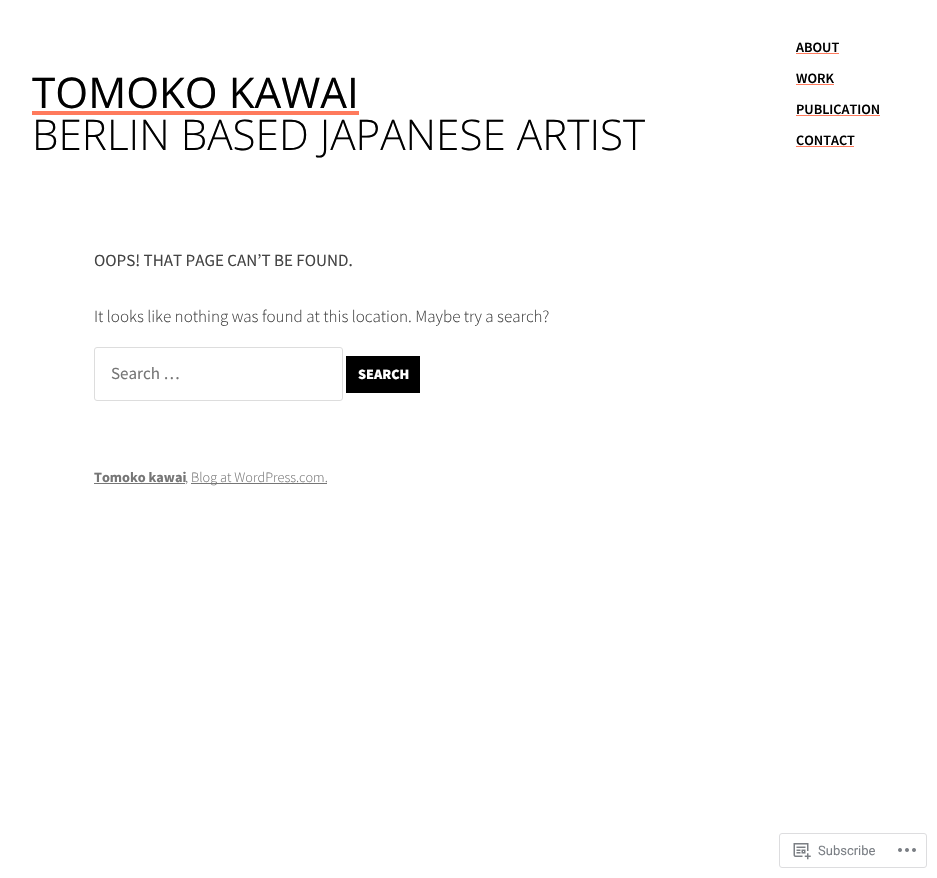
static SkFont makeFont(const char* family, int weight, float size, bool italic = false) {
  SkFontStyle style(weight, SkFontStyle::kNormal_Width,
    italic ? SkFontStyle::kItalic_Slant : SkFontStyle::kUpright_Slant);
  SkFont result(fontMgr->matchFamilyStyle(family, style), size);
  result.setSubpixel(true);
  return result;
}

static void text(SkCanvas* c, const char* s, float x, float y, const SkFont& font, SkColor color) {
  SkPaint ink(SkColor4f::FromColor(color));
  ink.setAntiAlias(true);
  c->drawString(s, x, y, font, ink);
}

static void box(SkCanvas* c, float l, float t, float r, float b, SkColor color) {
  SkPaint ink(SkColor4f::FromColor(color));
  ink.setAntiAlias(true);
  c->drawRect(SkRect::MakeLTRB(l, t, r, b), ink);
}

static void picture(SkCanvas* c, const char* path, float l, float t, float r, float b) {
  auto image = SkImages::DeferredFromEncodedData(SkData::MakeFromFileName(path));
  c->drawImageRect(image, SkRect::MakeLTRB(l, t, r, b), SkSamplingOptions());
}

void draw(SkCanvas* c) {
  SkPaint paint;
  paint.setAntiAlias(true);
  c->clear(0xffffffff);
  SkFont face1 = makeFont("Open Sans", 400, 42.25f);
  text(c, "TOMOKO KAWAI", 32, 108, face1, 0xff000000);
  box(c, 32, 111, 359, 115, 0xffff7a5c);
  SkFont face2 = makeFont("Open Sans", 300, 42.25f);
  text(c, "BERLIN BASED JAPANESE ARTIST", 32, 150, face2, 0xff000000);
  SkFont face3 = makeFont("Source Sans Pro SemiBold", 600, 14.25f);
  text(c, "ABOUT", 796, 52, face3, 0xff000000);
  box(c, 796, 53, 839, 54, 0xffff7a5c);
  text(c, "WORK", 796, 83, face3, 0xff000000);
  box(c, 796, 84, 834, 85, 0xffff7a5c);
  text(c, "PUBLICATION", 796, 114, face3, 0xff000000);
  box(c, 796, 115, 880, 116, 0xffff7a5c);
  text(c, "CONTACT", 796, 145, face3, 0xff000000);
  box(c, 796, 146, 854, 147, 0xffff7a5c);
  SkFont face4 = makeFont("Source Sans Pro", 400, 17);
  text(c, "OOPS! THAT PAGE CAN’T BE FOUND.", 94, 266, face4, 0xff444444);
  SkFont face5 = makeFont("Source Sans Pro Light", 300, 17);
  text(c, "It looks like nothing was found at this location. Maybe try a search?", 94, 322, face5, 0xff444444);
  paint.setStyle(SkPaint::kStroke_Style);
  paint.setStrokeWidth(1);
  paint.setColor(0xffdddddd);
  c->drawRoundRect(SkRect::MakeLTRB(94.5f, 347.5f, 342.5f, 400.5f), 2.5f, 2.5f, paint);
  text(c, "Search …", 111, 379, face4, 0xff767676);
  box(c, 346, 356, 420, 393, 0xff000000);
  SkFont face6 = makeFont("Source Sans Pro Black", 900, 14.25f);
  text(c, "SEARCH", 358, 379, face6, 0xffffffff);
  SkFont face7 = makeFont("Source Sans Pro", 700, 14.25f);
  text(c, "Tomoko kawai", 94, 482, face7, 0xff767676);
  box(c, 94, 483, 185, 484, 0xff767676);
  SkFont face8 = makeFont("Source Sans Pro Light", 300, 14.25f);
  text(c, ",", 185, 482, face8, 0xff767676);
  box(c, 191, 483, 327, 484, 0xff767676);
  text(c, "Blog at WordPress.com.", 191, 482, face8, 0xff767676);
  paint.setColor(0xffdddddf);
  c->drawRoundRect(SkRect::MakeLTRB(779.5f, 833.5f, 926.5f, 867.5f), 2.5f, 2.5f, paint);
  picture(c, "img_01.png", 793, 843, 811, 860);
  SkFont face9 = makeFont("Roboto", 400, 13);
  text(c, "Subscribe", 818, 855, face9, 0xff7b7f85);
  picture(c, "img_02.png", 898, 848, 916, 852);
}
